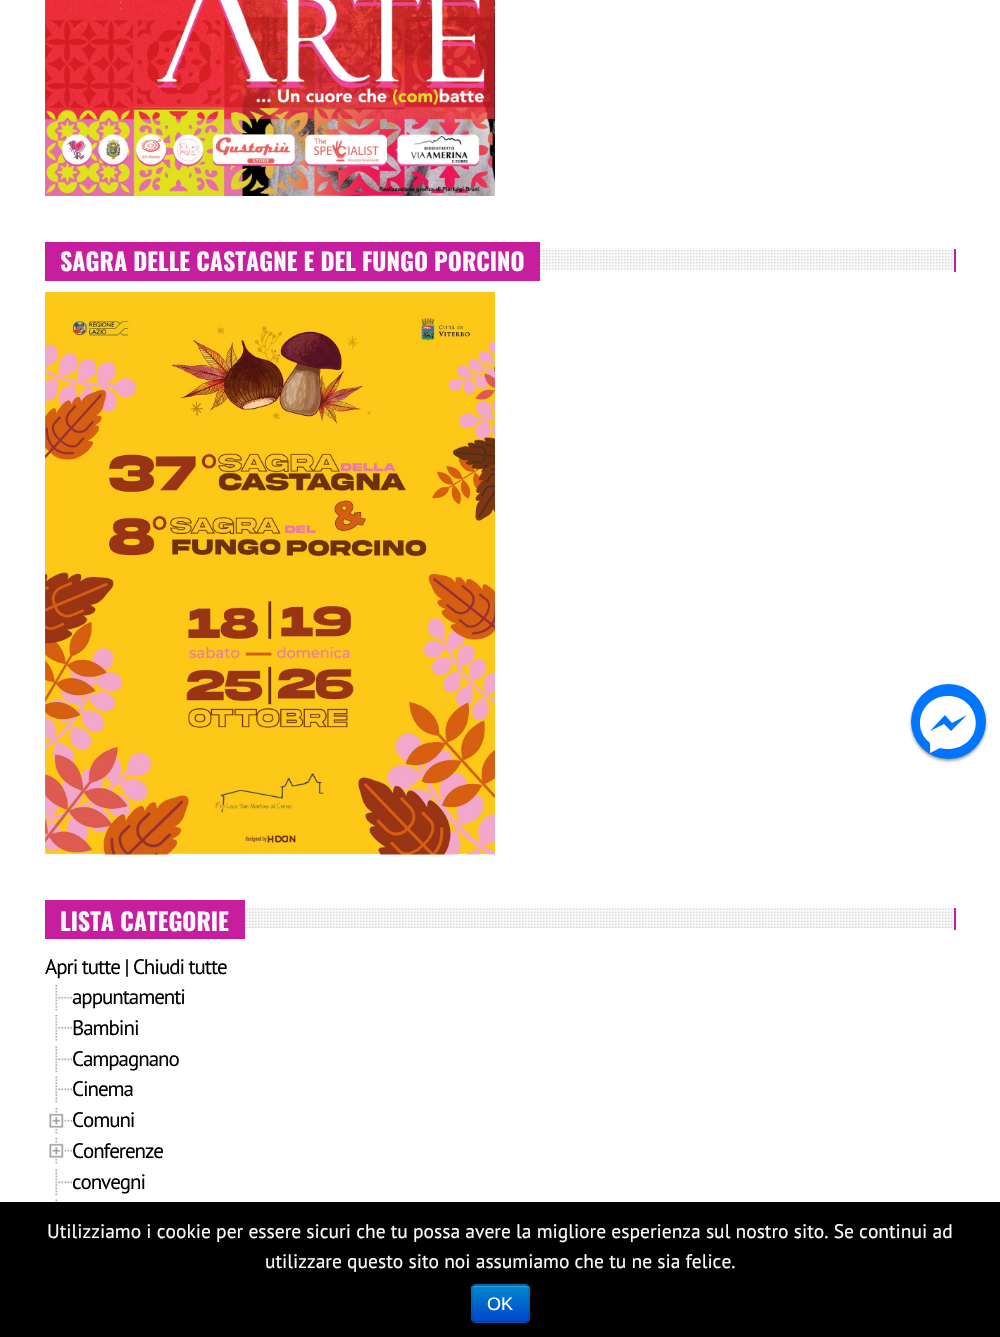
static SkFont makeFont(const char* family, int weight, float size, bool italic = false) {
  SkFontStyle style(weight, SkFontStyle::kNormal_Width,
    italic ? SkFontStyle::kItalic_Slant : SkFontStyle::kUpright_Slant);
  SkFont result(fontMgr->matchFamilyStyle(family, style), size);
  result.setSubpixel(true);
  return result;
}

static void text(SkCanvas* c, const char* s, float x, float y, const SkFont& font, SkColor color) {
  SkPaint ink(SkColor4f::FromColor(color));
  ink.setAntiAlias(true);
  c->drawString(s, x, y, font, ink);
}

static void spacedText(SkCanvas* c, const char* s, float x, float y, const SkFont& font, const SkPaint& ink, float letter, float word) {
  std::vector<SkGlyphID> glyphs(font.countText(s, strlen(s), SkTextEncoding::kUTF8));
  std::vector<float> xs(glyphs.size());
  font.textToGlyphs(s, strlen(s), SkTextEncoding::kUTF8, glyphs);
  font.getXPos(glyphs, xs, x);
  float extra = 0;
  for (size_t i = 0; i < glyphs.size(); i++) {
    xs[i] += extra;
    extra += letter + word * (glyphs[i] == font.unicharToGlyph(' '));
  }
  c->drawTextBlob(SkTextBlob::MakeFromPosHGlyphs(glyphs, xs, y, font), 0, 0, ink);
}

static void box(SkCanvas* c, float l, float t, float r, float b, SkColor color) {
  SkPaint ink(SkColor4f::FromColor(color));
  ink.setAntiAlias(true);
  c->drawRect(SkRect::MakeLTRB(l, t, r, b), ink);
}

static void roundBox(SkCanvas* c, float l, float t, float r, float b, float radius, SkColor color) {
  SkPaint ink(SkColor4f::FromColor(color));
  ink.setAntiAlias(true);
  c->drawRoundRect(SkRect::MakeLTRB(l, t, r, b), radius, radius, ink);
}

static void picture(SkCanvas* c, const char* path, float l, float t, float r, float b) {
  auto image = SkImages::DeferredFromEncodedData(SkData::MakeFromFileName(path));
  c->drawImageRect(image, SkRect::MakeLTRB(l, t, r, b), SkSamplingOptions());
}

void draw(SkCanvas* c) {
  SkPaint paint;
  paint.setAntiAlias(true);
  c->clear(0xffffffff);
  picture(c, "img_01.png", 45, 0, 495, 196);
  box(c, 45, 242, 540, 281, 0xffc71e9f);
  SkFont face1 = makeFont("Oswald", 700, 24);
  text(c, "SAGRA DELLE CASTAGNE E DEL FUNGO PORCINO", 60, 271, face1, 0xfff8f8f8);
  picture(c, "img_02.png", 540, 248, 956, 270);
  box(c, 954, 249, 956, 272, 0xffc71e9f);
  picture(c, "img_03.png", 45, 292, 495, 855);
  box(c, 45, 900, 245, 939, 0xffc71e9f);
  text(c, "LISTA CATEGORIE", 60, 931, face1, 0xfff8f8f8);
  picture(c, "img_04.png", 245, 907, 955, 928);
  box(c, 954, 908, 956, 930, 0xffc71e9f);
  SkFont face2 = makeFont("PT Sans", 400, 21);
  paint.setColor(0xff000000);
  spacedText(c, "Apri tutte | Chiudi tutte", 45, 974, face2, paint, -1.05f, 0);
  picture(c, "img_05.png", 55, 985, 72, 1011);
  spacedText(c, "appuntamenti", 72, 1004, face2, paint, -1.05f, 0);
  picture(c, "img_05.png", 55, 1015, 72, 1041);
  spacedText(c, "Bambini", 72, 1035, face2, paint, -1.05f, 0);
  picture(c, "img_06.png", 55, 1046, 72, 1073);
  spacedText(c, "Campagnano", 72, 1066, face2, paint, -1.05f, 0);
  picture(c, "img_06.png", 55, 1076, 72, 1103);
  spacedText(c, "Cinema", 72, 1096, face2, paint, -1.05f, 0);
  picture(c, "img_07.png", 49, 1108, 72, 1134);
  spacedText(c, "Comuni", 72, 1127, face2, paint, -1.05f, 0);
  picture(c, "img_07.png", 49, 1138, 72, 1164);
  spacedText(c, "Conferenze", 72, 1158, face2, paint, -1.05f, 0);
  picture(c, "img_06.png", 55, 1169, 72, 1196);
  spacedText(c, "convegni", 72, 1189, face2, paint, -1.05f, 0);
  picture(c, "img_08.png", 55, 1199, 58, 1202);
  paint.setColor(0x66000000);
  paint.setMaskFilter(SkMaskFilter::MakeBlur(kNormal_SkBlurStyle, 1.5f));
  c->drawRoundRect(SkRect::MakeLTRB(911, 686, 986, 761), 37.5f, 37.5f, paint);
  paint.setMaskFilter(nullptr);
  paint.setColor(0xff0075ff);
  c->drawCircle(948.5f, 721.5f, 37.5f, paint);
  paint.setColor(0xffffffff);
  c->drawPath(SkPathBuilder().moveTo(948, 696).cubicTo(922, 696, 910, 727, 930, 743).lineTo(930, 753).lineTo(940, 748).cubicTo(946, 750, 953, 749, 959, 747).cubicTo(987, 736, 978, 696, 948, 696).close().moveTo(951, 731).lineTo(944, 724).lineTo(930, 731).lineTo(945, 715).lineTo(952, 723).lineTo(967, 715).close().detach(), paint);
  box(c, 0, 1202, 1000, 1337, 0xff000000);
  SkFont face3 = makeFont("PT Sans", 400, 19.5f);
  text(c, "Utilizziamo i cookie per essere sicuri che tu possa avere la migliore esperienza sul nostro sito. Se continui ad", 47, 1238, face3, 0xffffffff);
  text(c, "utilizzare questo sito noi assumiamo che tu ne sia felice.", 265, 1268, face3, 0xffffffff);
  roundBox(c, 471, 1284, 530, 1323, 5, 0xff006dcc);
  c->save();
  c->clipPath(SkPathBuilder().moveTo(476, 1284).lineTo(525, 1284).cubicTo(528, 1284, 530, 1286, 530, 1289).lineTo(530, 1318).cubicTo(530, 1321, 528, 1323, 525, 1323).lineTo(476, 1323).cubicTo(473, 1323, 471, 1321, 471, 1318).lineTo(471, 1289).cubicTo(471, 1286, 473, 1284, 476, 1284).close().detach(), true);
  {
    const SkColor colors[] = {0xff0088cc, 0xff0044cc};
    const float stops[] = {0, 1};
    const SkPoint ends[] = {{500, 1286}, {500, 1322}};
    paint.setShader(SkGradientShader::MakeLinear(ends, colors, stops, 2, SkTileMode::kClamp));
    paint.setAlpha(255);
  }
  c->drawRect(SkRect::MakeLTRB(471, 1286, 530, 1322), paint);
  c->restore();
  paint.setShader(nullptr);
  paint.setColor(0xff339fd6);
  c->drawPath(SkPathBuilder().moveTo(476, 1287).lineTo(525, 1287).cubicTo(527, 1287, 528, 1288, 528, 1290).lineTo(528, 1289).cubicTo(528, 1287, 527, 1286, 525, 1286).lineTo(476, 1286).cubicTo(475, 1286, 474, 1287, 473, 1288).close().detach(), paint);
  paint.setStyle(SkPaint::kStroke_Style);
  paint.setStrokeWidth(1.5f);
  paint.setColor(0x40000000);
  c->drawPath(SkPathBuilder().moveTo(527.5f, 1321).cubicTo(527, 1322, 526, 1322, 525, 1322).lineTo(475.5f, 1322).cubicTo(474.5f, 1322, 473.5f, 1322, 473, 1321).detach(), paint);
  paint.setColor(0x1a000000);
  c->drawPath(SkPathBuilder().moveTo(473, 1321).cubicTo(472, 1320.5f, 472, 1319.5f, 472, 1318.5f).lineTo(472, 1288.5f).cubicTo(472, 1287.5f, 472, 1286.5f, 473, 1286).cubicTo(473.5f, 1285, 474.5f, 1285, 475.5f, 1285).lineTo(525, 1285).cubicTo(526, 1285, 527, 1285, 527.5f, 1286).cubicTo(528.5f, 1286.5f, 529, 1287.5f, 529, 1288.5f).lineTo(529, 1318.5f).cubicTo(529, 1319.5f, 528.5f, 1320.5f, 527.5f, 1321).detach(), paint);
  SkFont face4 = makeFont("Liberation Sans", 400, 18);
  text(c, "OK", 487, 1310, face4, 0xffffffff);
}
